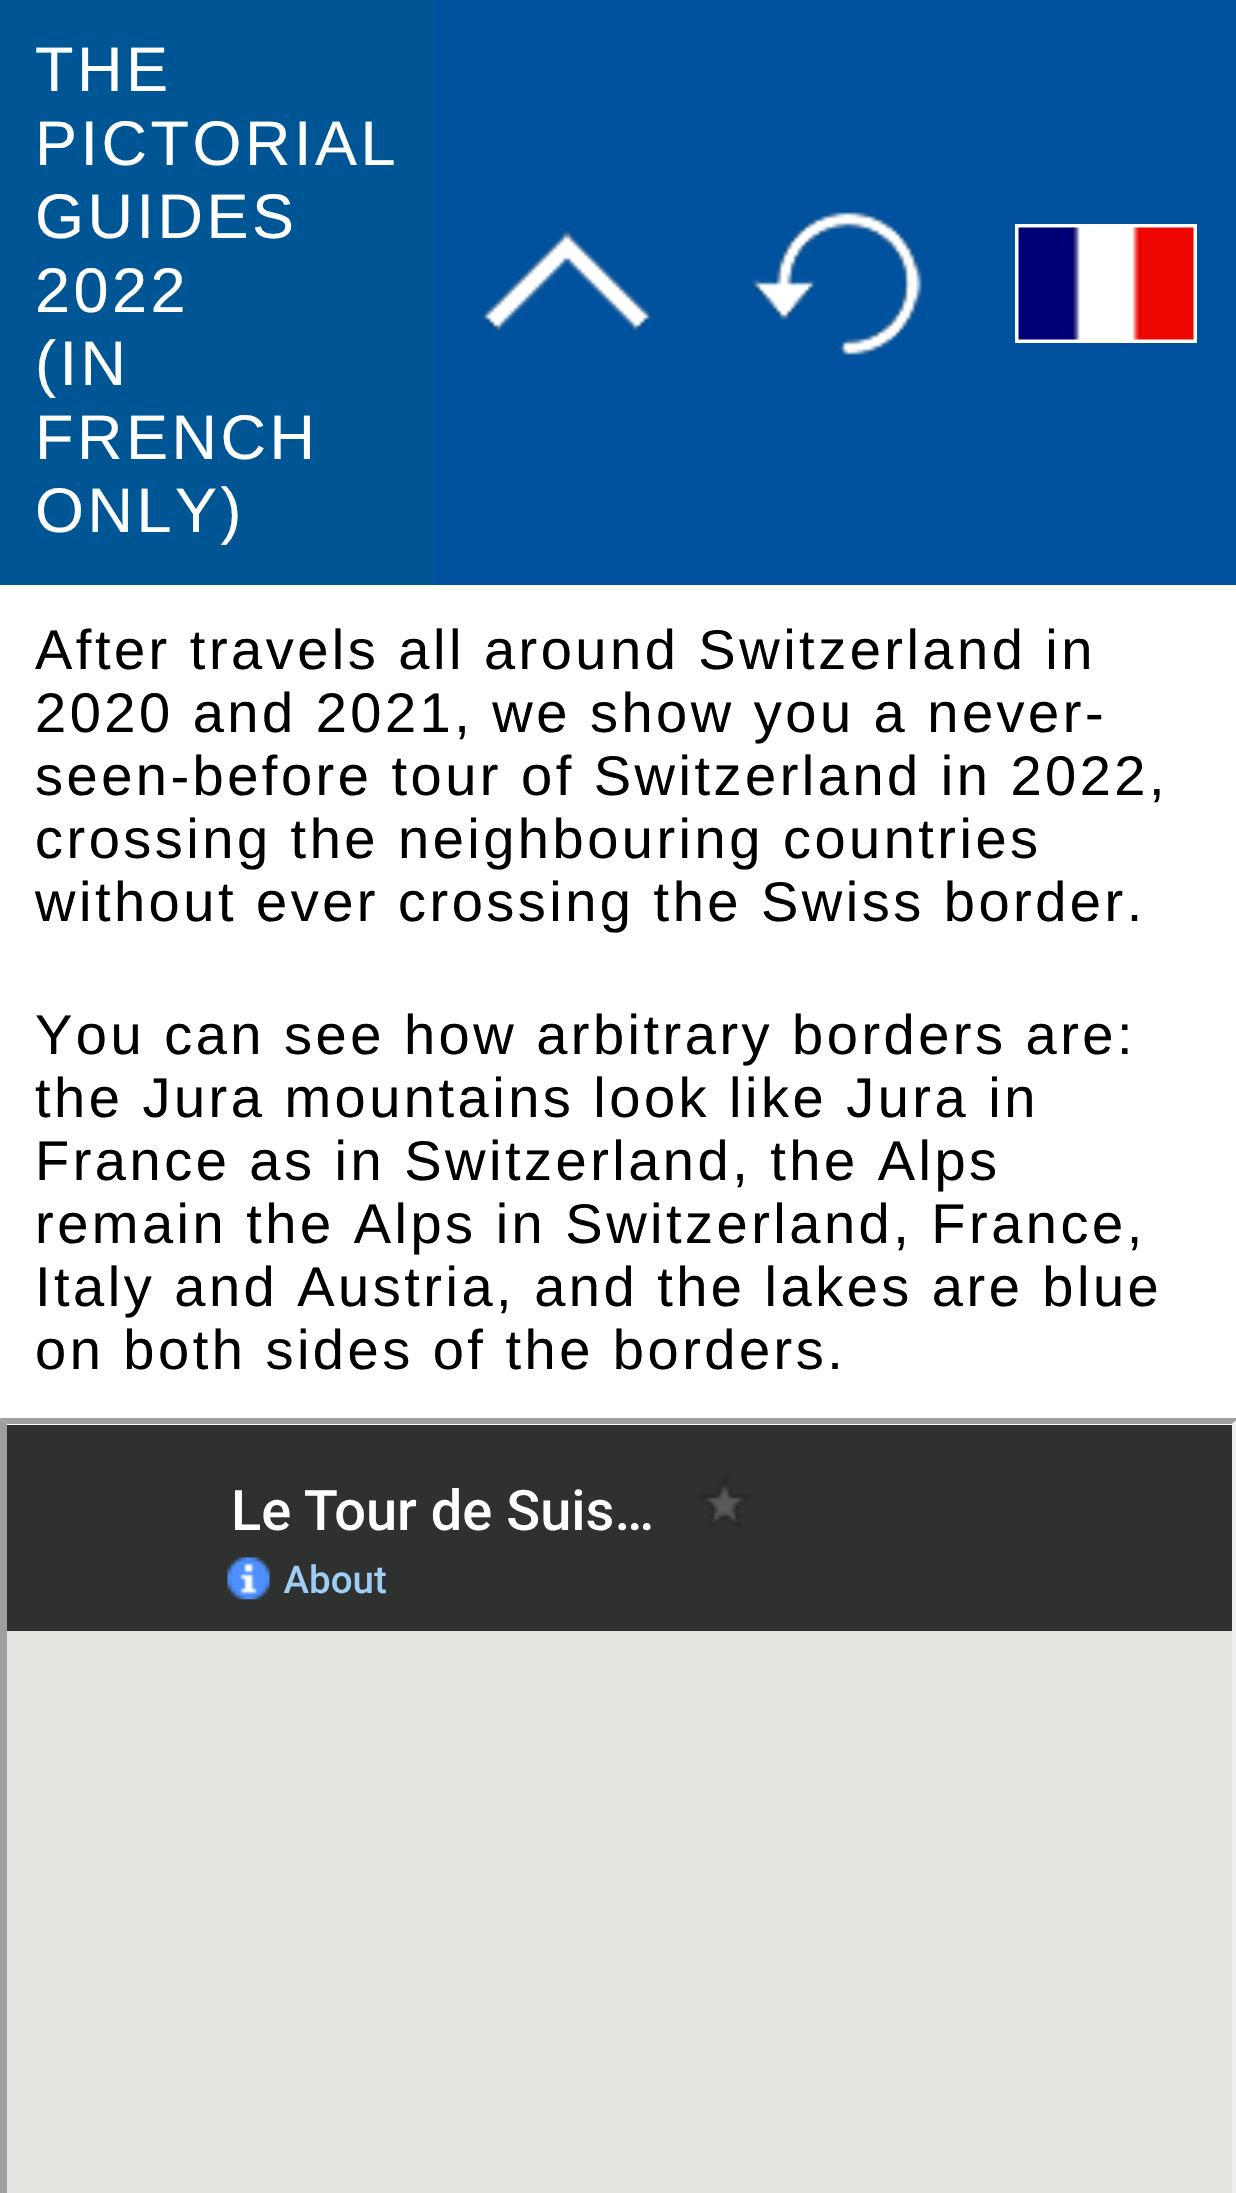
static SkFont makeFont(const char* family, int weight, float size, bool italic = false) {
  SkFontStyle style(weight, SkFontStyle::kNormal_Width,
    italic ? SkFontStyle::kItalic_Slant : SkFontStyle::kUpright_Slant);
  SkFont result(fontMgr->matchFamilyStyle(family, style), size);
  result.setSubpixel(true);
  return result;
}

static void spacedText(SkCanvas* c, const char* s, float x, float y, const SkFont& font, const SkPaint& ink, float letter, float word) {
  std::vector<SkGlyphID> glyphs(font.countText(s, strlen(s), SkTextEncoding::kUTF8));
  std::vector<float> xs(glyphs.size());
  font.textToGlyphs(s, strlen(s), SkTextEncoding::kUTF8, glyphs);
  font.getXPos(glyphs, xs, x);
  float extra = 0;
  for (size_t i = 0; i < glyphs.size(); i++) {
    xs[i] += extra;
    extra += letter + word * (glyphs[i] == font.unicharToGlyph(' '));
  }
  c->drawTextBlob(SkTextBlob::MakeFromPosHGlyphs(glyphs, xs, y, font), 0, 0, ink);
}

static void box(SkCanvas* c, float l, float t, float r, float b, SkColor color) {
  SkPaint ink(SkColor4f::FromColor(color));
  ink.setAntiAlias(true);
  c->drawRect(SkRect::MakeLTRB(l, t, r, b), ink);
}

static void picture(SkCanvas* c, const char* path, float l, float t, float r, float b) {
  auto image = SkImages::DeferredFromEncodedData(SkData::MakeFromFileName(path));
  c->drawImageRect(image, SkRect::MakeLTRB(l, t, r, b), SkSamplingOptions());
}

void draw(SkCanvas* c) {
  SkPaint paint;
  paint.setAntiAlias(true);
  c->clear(0xffffffff);
  box(c, 434, 0, 1236, 585, 0xff00519e);
  box(c, 0, 0, 434, 585, 0xff005695);
  SkFont face1 = makeFont("Liberation Sans", 400, 63);
  paint.setColor(0xffffffff);
  spacedText(c, "THE", 35, 91, face1, paint, 3.5f, 0);
  spacedText(c, "PICTORIAL", 35, 165, face1, paint, 3.5f, 0);
  spacedText(c, "GUIDES", 35, 238, face1, paint, 3.5f, 0);
  spacedText(c, "2022", 35, 312, face1, paint, 3.5f, 0);
  spacedText(c, "(IN", 35, 385, face1, paint, 3.5f, 0);
  spacedText(c, "FRENCH", 35, 459, face1, paint, 3.5f, 0);
  spacedText(c, "ONLY)", 35, 532, face1, paint, 3.5f, 0);
  picture(c, "img_01.png", 482, 230, 653, 331);
  picture(c, "img_02.png", 751, 212, 922, 355);
  paint.setStyle(SkPaint::kStroke_Style);
  paint.setStrokeWidth(4);
  c->drawRect(SkRect::MakeLTRB(1017, 226, 1195, 341), paint);
  picture(c, "img_03.png", 1018, 227, 1194, 340);
  SkFont face2 = makeFont("Liberation Sans", 400, 56);
  paint.setStyle(SkPaint::kFill_Style);
  paint.setColor(0xff000000);
  spacedText(c, "After travels all around Switzerland in", 35, 669, face2, paint, 3.5f, 0);
  spacedText(c, "2020 and 2021, we show you a never-", 35, 732, face2, paint, 3.5f, 0);
  spacedText(c, "seen-before tour of Switzerland in 2022,", 35, 795, face2, paint, 3.5f, 0);
  spacedText(c, "crossing the neighbouring countries", 35, 858, face2, paint, 3.5f, 0);
  spacedText(c, "without ever crossing the Swiss border.", 35, 921, face2, paint, 3.5f, 0);
  spacedText(c, "You can see how arbitrary borders are:", 35, 1054, face2, paint, 3.5f, 0);
  spacedText(c, "the Jura mountains look like Jura in", 35, 1117, face2, paint, 3.5f, 0);
  spacedText(c, "France as in Switzerland, the Alps", 35, 1180, face2, paint, 3.5f, 0);
  spacedText(c, "remain the Alps in Switzerland, France,", 35, 1243, face2, paint, 3.5f, 0);
  spacedText(c, "Italy and Austria, and the lakes are blue", 35, 1306, face2, paint, 3.5f, 0);
  spacedText(c, "on both sides of the borders.", 35, 1369, face2, paint, 3.5f, 0);
  paint.setColor(0xff9f9f9f);
  c->drawPath(SkPathBuilder().moveTo(0, 1418).lineTo(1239, 1418).lineTo(1232, 1424).lineTo(7, 1424).close().detach(), paint);
  c->drawPath(SkPathBuilder().moveTo(0, 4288).lineTo(0, 1418).lineTo(7, 1424).lineTo(7, 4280).close().detach(), paint);
  picture(c, "img_04.png", 7, 1424, 1232, 2193);
  paint.setColor(0xffeeeeee);
  c->drawPath(SkPathBuilder().moveTo(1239, 1418).lineTo(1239, 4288).lineTo(1232, 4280).lineTo(1232, 1424).close().detach(), paint);
}
